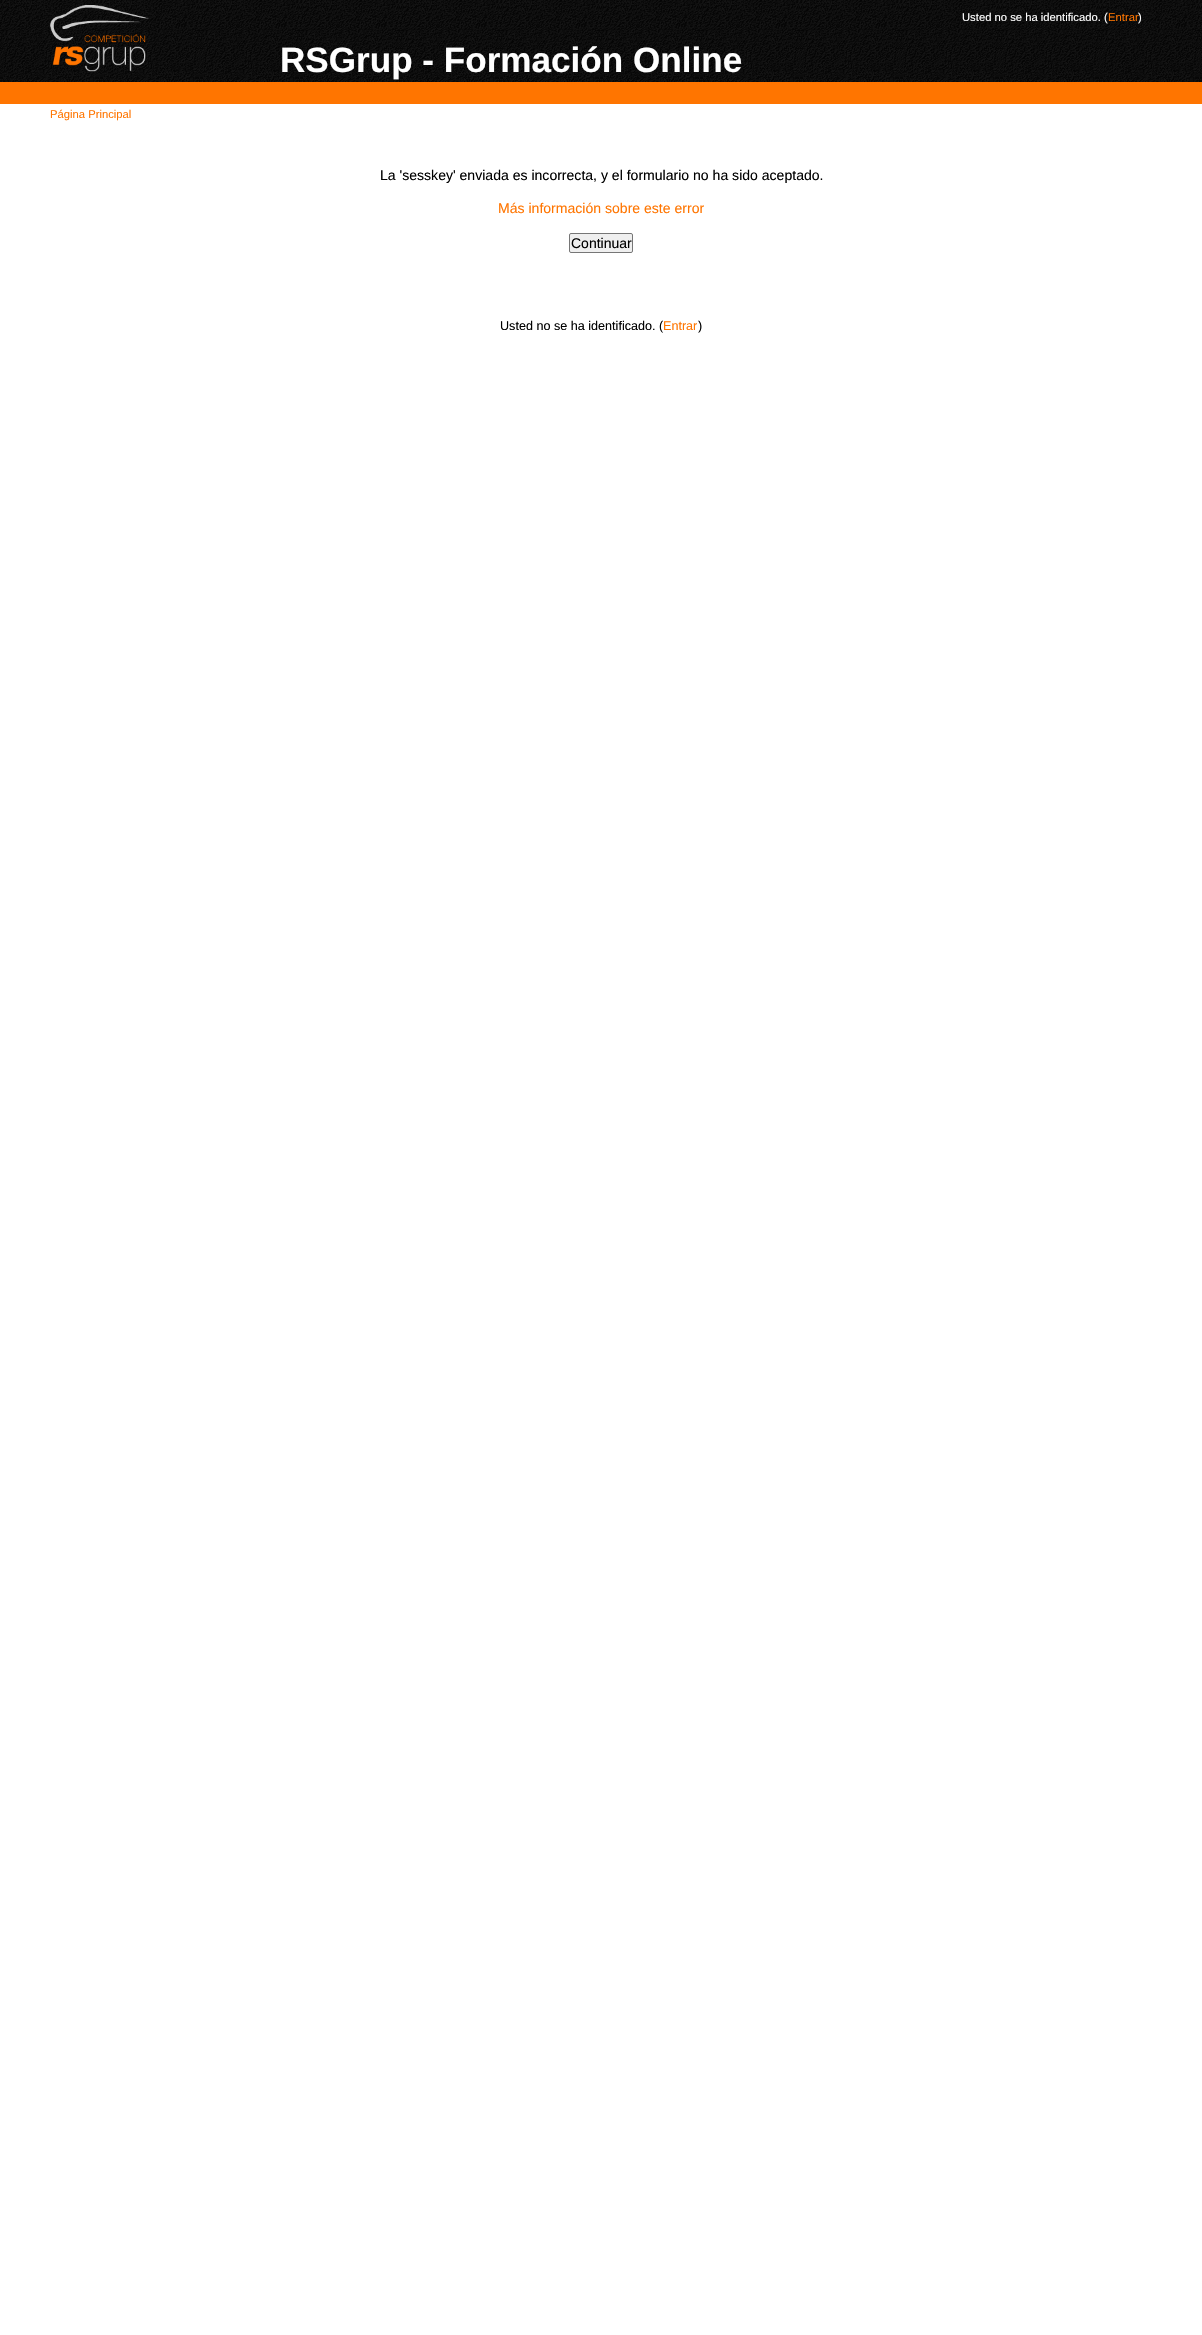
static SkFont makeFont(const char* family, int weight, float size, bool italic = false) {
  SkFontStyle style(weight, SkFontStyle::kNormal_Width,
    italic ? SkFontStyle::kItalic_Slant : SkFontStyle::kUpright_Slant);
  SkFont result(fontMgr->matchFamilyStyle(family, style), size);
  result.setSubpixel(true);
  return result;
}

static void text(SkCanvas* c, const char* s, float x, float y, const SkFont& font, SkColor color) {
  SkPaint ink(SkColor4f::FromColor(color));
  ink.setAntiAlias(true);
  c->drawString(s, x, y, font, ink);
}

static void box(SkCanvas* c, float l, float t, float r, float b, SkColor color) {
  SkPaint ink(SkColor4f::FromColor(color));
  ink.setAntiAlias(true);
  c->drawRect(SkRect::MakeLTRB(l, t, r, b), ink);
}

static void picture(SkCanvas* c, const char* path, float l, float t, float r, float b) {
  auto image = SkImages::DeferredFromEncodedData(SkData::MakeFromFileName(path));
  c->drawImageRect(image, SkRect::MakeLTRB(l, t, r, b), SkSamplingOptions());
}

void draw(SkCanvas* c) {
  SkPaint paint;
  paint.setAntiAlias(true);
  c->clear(0xffffffff);
  picture(c, "img_01.png", 0, 0, 1202, 82);
  SkFont face1 = makeFont("Liberation Sans", 400, 11.25f);
  text(c, "Usted no se ha identificado. (", 962, 21, face1, 0xffffffff);
  text(c, "Entrar", 1108, 21, face1, 0xffff7500);
  text(c, ")", 1138, 21, face1, 0xffffffff);
  picture(c, "img_02.png", 50, 5, 149, 72);
  SkFont face2 = makeFont("Liberation Sans", 700, 35.1f);
  text(c, "RSGrup - Formación Online", 280, 72, face2, 0xffffffff);
  box(c, 0, 82, 1202, 104, 0xffff7500);
  text(c, "Página Principal", 50, 118, face1, 0xffff7500);
  SkFont face3 = makeFont("Liberation Sans", 400, 14.05f);
  text(c, "La 'sesskey' enviada es incorrecta, y el formulario no ha sido aceptado.", 380, 180, face3, 0xff000000);
  text(c, "Más información sobre este error", 498, 213, face3, 0xffff7500);
  paint.setColor(0xffefefef);
  c->drawRoundRect(SkRect::MakeLTRB(569.5f, 233.5f, 632.5f, 252.5f), 1.5f, 1.5f, paint);
  paint.setStyle(SkPaint::kStroke_Style);
  paint.setStrokeWidth(1);
  paint.setColor(0xff767676);
  c->drawRoundRect(SkRect::MakeLTRB(569.5f, 233.5f, 632.5f, 252.5f), 1.5f, 1.5f, paint);
  SkFont face4 = makeFont("Liberation Sans", 400, 14);
  text(c, "Continuar", 571, 248, face4, 0xff000000);
  SkFont face5 = makeFont("Liberation Sans", 400, 12.6f);
  text(c, "Usted no se ha identificado. (", 500, 330, face5, 0xff000000);
  text(c, "Entrar", 663, 330, face5, 0xffff7500);
  text(c, ")", 698, 330, face5, 0xff000000);
}
